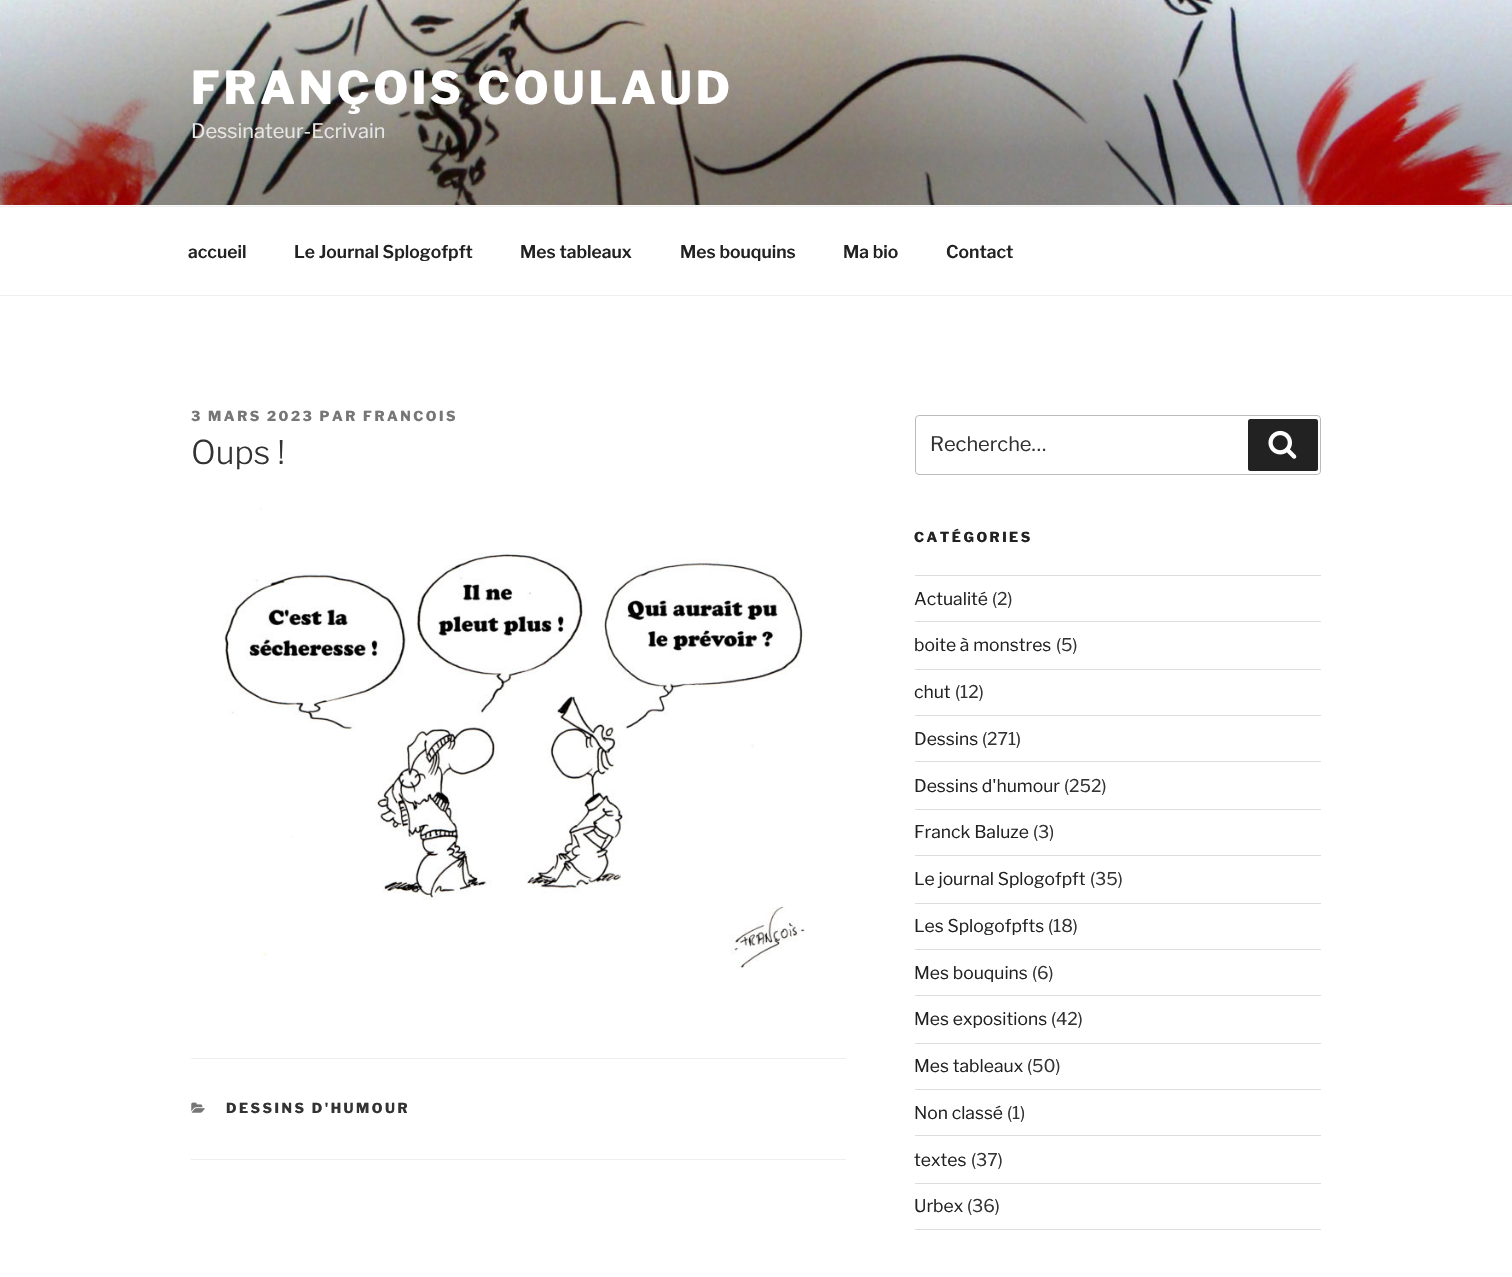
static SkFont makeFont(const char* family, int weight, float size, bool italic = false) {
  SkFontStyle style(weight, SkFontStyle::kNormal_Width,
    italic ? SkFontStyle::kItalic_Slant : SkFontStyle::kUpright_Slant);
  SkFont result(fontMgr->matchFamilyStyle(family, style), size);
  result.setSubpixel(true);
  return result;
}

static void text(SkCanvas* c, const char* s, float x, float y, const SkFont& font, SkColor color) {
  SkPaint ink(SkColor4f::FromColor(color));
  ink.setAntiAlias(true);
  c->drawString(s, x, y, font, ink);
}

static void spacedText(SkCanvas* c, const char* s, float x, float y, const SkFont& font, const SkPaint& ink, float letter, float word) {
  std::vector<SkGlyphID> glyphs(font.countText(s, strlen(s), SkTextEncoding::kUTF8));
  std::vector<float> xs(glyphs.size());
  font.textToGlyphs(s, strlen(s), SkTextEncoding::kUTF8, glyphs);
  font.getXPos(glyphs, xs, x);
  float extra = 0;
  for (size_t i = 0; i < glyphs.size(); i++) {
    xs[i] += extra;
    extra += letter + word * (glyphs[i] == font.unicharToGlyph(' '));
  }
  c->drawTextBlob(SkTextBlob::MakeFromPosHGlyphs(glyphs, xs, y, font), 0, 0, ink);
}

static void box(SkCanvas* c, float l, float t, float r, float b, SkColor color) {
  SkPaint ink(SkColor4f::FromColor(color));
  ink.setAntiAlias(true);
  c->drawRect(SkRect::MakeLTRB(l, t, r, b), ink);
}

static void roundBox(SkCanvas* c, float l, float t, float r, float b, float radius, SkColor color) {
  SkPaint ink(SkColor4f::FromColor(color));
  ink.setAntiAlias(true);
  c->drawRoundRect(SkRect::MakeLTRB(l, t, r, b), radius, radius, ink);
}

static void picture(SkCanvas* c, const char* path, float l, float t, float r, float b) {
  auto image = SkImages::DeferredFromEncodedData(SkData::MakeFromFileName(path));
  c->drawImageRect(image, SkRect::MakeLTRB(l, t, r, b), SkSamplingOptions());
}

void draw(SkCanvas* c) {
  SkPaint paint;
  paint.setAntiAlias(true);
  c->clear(0xffffffff);
  box(c, 0, 205, 1512, 206, 0xfffafafa);
  picture(c, "img_01.png", 0, 0, 1512, 205);
  SkFont face1 = makeFont("Libre Franklin", 100, 45);
  paint.setColor(0xffffffff);
  spacedText(c, "FRANÇOIS COULAUD", 191, 104, face1, paint, 3.6f, 0);
  SkFont face2 = makeFont("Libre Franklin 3", 100, 20);
  text(c, "Dessinateur-Ecrivain", 191, 138, face2, 0xffe6e6e4);
  box(c, 0, 206, 1512, 207, 0xffeeeeee);
  box(c, 0, 295, 1512, 296, 0xffeeeeee);
  SkFont face3 = makeFont("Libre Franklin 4", 100, 17.5f);
  text(c, "accueil", 188, 258, face3, 0xff222222);
  text(c, "Le Journal Splogofpft", 294, 258, face3, 0xff222222);
  text(c, "Mes tableaux", 520, 258, face3, 0xff222222);
  text(c, "Mes bouquins", 680, 258, face3, 0xff222222);
  text(c, "Ma bio", 843, 258, face3, 0xff222222);
  text(c, "Contact", 946, 258, face3, 0xff222222);
  SkFont face4 = makeFont("Libre Franklin", 100, 13.75f);
  paint.setColor(0xff767676);
  spacedText(c, "3 MARS 2023 PAR FRANCOIS", 191, 421, face4, paint, 2.5f, 0);
  SkFont face5 = makeFont("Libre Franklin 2", 100, 32.5f);
  text(c, "Oups !", 191, 464, face5, 0xff333333);
  picture(c, "img_02.png", 222, 508, 805, 969);
  box(c, 191, 1058, 846, 1059, 0xffeeeeee);
  box(c, 191, 1159, 846, 1160, 0xffeeeeee);
  picture(c, "img_03.png", 191, 1102, 205, 1113);
  paint.setColor(0xff333333);
  spacedText(c, "DESSINS D'HUMOUR", 226, 1113, face4, paint, 2.5f, 0);
  paint.setStyle(SkPaint::kStroke_Style);
  paint.setStrokeWidth(1);
  paint.setColor(0xffbbbbbb);
  c->drawRoundRect(SkRect::MakeLTRB(915.5f, 415.5f, 1320.5f, 474.5f), 3.5f, 3.5f, paint);
  text(c, "Recherche…", 930, 451, face2, 0xff333333);
  roundBox(c, 1248, 419, 1318, 471, 2.5f, 0xff222222);
  picture(c, "img_04.png", 1268, 430, 1297, 459);
  paint.setStyle(SkPaint::kFill_Style);
  paint.setColor(0xff222222);
  spacedText(c, "CATÉGORIES", 914, 542, face4, paint, 2.5f, 0);
  box(c, 915, 575, 1321, 576, 0xffdddddd);
  box(c, 915, 621, 1321, 622, 0xffdddddd);
  SkFont face6 = makeFont("Libre Franklin 3", 100, 17.5f);
  text(c, "Actualité", 914, 605, face6, 0xff222222);
  text(c, "(2)", 992, 605, face6, 0xff333333);
  box(c, 915, 669, 1321, 670, 0xffdddddd);
  text(c, "boite à monstres", 914, 651, face6, 0xff222222);
  text(c, "(5)", 1056, 651, face6, 0xff333333);
  box(c, 915, 715, 1321, 716, 0xffdddddd);
  text(c, "chut", 914, 698, face6, 0xff222222);
  text(c, "(12)", 955, 698, face6, 0xff333333);
  box(c, 915, 761, 1321, 762, 0xffdddddd);
  text(c, "Dessins", 914, 745, face6, 0xff222222);
  text(c, "(271)", 982, 745, face6, 0xff333333);
  box(c, 915, 809, 1321, 810, 0xffdddddd);
  text(c, "Dessins d'humour", 914, 792, face6, 0xff222222);
  text(c, "(252)", 1064, 792, face6, 0xff333333);
  box(c, 915, 855, 1321, 856, 0xffdddddd);
  text(c, "Franck Baluze", 914, 838, face6, 0xff222222);
  text(c, "(3)", 1033, 838, face6, 0xff333333);
  box(c, 915, 903, 1321, 904, 0xffdddddd);
  text(c, "Le journal Splogofpft", 914, 885, face6, 0xff222222);
  text(c, "(35)", 1090, 885, face6, 0xff333333);
  box(c, 915, 949, 1321, 950, 0xffdddddd);
  text(c, "Les Splogofpfts", 914, 932, face6, 0xff222222);
  text(c, "(18)", 1048, 932, face6, 0xff333333);
  box(c, 915, 995, 1321, 996, 0xffdddddd);
  text(c, "Mes bouquins", 914, 979, face6, 0xff222222);
  text(c, "(6)", 1032, 979, face6, 0xff333333);
  box(c, 915, 1043, 1321, 1044, 0xffdddddd);
  text(c, "Mes expositions", 914, 1025, face6, 0xff222222);
  text(c, "(42)", 1051, 1025, face6, 0xff333333);
  box(c, 915, 1089, 1321, 1090, 0xffdddddd);
  text(c, "Mes tableaux", 914, 1072, face6, 0xff222222);
  text(c, "(50)", 1027, 1072, face6, 0xff333333);
  box(c, 915, 1135, 1321, 1136, 0xffdddddd);
  text(c, "Non classé", 914, 1119, face6, 0xff222222);
  text(c, "(1)", 1007, 1119, face6, 0xff333333);
  box(c, 915, 1183, 1321, 1184, 0xffdddddd);
  text(c, "textes", 914, 1166, face6, 0xff222222);
  text(c, "(37)", 971, 1166, face6, 0xff333333);
  box(c, 915, 1229, 1321, 1230, 0xffdddddd);
  text(c, "Urbex", 914, 1212, face6, 0xff222222);
  text(c, "(36)", 967, 1212, face6, 0xff333333);
}
